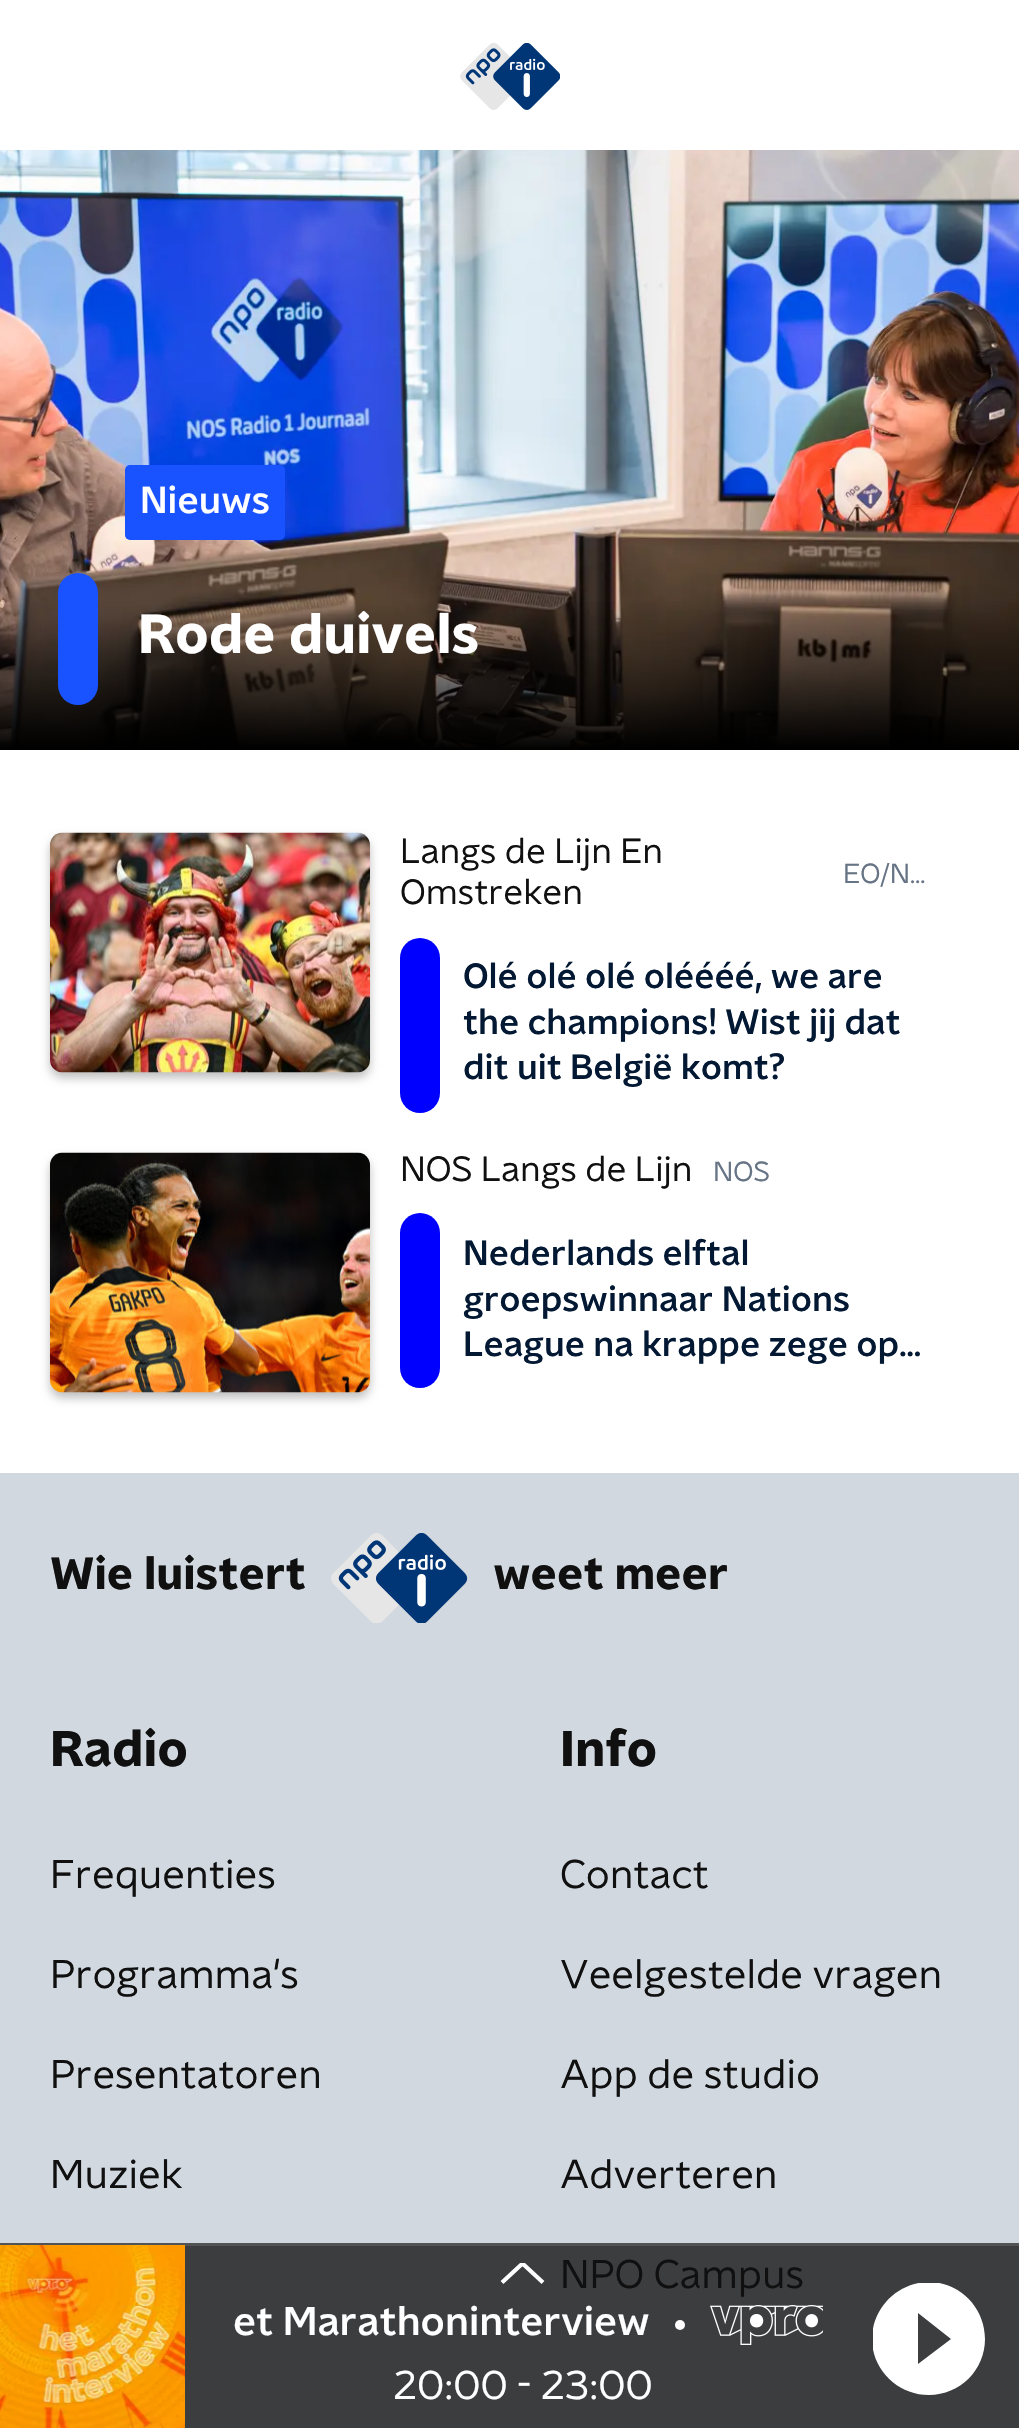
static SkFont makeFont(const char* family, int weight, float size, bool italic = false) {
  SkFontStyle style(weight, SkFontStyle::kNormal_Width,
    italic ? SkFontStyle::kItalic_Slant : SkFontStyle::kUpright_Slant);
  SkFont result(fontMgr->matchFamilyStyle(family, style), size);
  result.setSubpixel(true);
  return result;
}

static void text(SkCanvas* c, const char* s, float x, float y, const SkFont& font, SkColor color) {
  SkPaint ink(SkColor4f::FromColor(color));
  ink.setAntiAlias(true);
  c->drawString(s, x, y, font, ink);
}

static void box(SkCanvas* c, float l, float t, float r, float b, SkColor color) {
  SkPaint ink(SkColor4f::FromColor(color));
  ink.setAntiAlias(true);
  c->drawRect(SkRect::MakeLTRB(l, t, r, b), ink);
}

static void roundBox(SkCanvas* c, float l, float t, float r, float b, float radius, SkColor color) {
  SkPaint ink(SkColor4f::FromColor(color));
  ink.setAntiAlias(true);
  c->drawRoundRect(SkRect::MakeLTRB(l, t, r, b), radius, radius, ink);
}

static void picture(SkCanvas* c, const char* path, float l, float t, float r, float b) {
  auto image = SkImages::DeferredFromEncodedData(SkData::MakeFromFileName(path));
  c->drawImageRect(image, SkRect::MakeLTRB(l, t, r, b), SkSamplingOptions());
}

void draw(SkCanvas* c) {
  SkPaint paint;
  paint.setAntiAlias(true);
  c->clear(0xffffffff);
  picture(c, "img_01.png", 460, 43, 560, 110);
  picture(c, "img_02.png", 0, 150, 1019, 750);
  roundBox(c, 125, 465, 285, 540, 5, 0xff1952ff);
  SkFont face1 = makeFont("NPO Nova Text", 500, 37.5f);
  text(c, "Nieuws", 140, 513, face1, 0xffffffff);
  roundBox(c, 58, 573, 98, 705, 20, 0xff1952ff);
  SkFont face2 = makeFont("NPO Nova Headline", 700, 55);
  text(c, "Rode duivels", 138, 653, face2, 0xffffffff);
  paint.setColor(0x40000000);
  paint.setMaskFilter(SkMaskFilter::MakeBlur(kNormal_SkBlurStyle, 5));
  c->drawRoundRect(SkRect::MakeLTRB(50, 838, 370, 1078), 13, 13, paint);
  paint.setMaskFilter(nullptr);
  picture(c, "img_03.png", 50, 832, 370, 1073);
  SkFont face3 = makeFont("NPO Nova Text", 400, 35);
  text(c, "Langs de Lijn En", 400, 863, face3, 0xff101010);
  text(c, "Omstreken", 400, 904, face3, 0xff101010);
  SkFont face4 = makeFont("NPO Nova Text", 400, 27.5f);
  text(c, "EO/N…", 843, 883, face4, 0xff677485);
  roundBox(c, 400, 938, 440, 1113, 20, 0xff0000ff);
  SkFont face5 = makeFont("NPO Nova Text", 500, 35);
  text(c, "Olé olé olé oléééé, we are", 463, 988, face5, 0xff021833);
  text(c, "the champions! Wist jij dat", 463, 1034, face5, 0xff021833);
  text(c, "dit uit België komt?", 463, 1079, face5, 0xff021833);
  paint.setMaskFilter(SkMaskFilter::MakeBlur(kNormal_SkBlurStyle, 5));
  c->drawRoundRect(SkRect::MakeLTRB(50, 1158, 370, 1398), 13, 13, paint);
  paint.setMaskFilter(nullptr);
  picture(c, "img_04.png", 50, 1152, 370, 1393);
  text(c, "NOS Langs de Lijn", 400, 1181, face3, 0xff101010);
  text(c, "NOS", 713, 1181, face4, 0xff677485);
  roundBox(c, 400, 1213, 440, 1388, 20, 0xff0000ff);
  text(c, "Nederlands elftal", 463, 1265, face5, 0xff021833);
  text(c, "groepswinnaar Nations", 463, 1311, face5, 0xff021833);
  text(c, "League na krappe zege op…", 463, 1356, face5, 0xff021833);
  box(c, 0, 1473, 1019, 2243, 0xffd1d8df);
  box(c, 185, 2246, 1019, 2428, 0xff3b3d3f);
  SkFont face6 = makeFont("NPO Nova Headline", 700, 45);
  text(c, "Wie luistert", 50, 1589, face6, 0xff101010);
  picture(c, "img_05.png", 331, 1533, 468, 1623);
  text(c, "weet meer", 493, 1589, face6, 0xff101010);
  SkFont face7 = makeFont("NPO Nova Headline", 700, 50);
  text(c, "Radio", 50, 1766, face7, 0xff101010);
  SkFont face8 = makeFont("NPO Nova Text", 400, 40);
  text(c, "Frequenties", 50, 1888, face8, 0xff101010);
  text(c, "Programma's", 50, 1988, face8, 0xff101010);
  text(c, "Presentatoren", 50, 2088, face8, 0xff101010);
  text(c, "Muziek", 50, 2188, face8, 0xff101010);
  text(c, "Info", 560, 1766, face7, 0xff101010);
  text(c, "Contact", 560, 1888, face8, 0xff101010);
  text(c, "Veelgestelde vragen", 560, 1988, face8, 0xff101010);
  text(c, "App de studio", 560, 2088, face8, 0xff101010);
  text(c, "Adverteren", 560, 2188, face8, 0xff101010);
  text(c, "NPO Campus", 560, 2288, face8, 0xff101010);
  box(c, 0, 2243, 1019, 2246, 0xff525354);
  picture(c, "img_06.png", 0, 2245, 185, 2428);
  c->save();
  c->clipRect(SkRect::MakeLTRB(500, 2263, 545, 2285));
  paint.setStyle(SkPaint::kStroke_Style);
  paint.setStrokeWidth(4.1f);
  paint.setColor(0xffffffff);
  c->drawPath(SkPathBuilder().moveTo(543, 2282.5f).lineTo(522.5f, 2263.5f).lineTo(502, 2282.5f).detach(), paint);
  c->restore();
  SkFont face9 = makeFont("NPO Nova Text", 500, 40);
  text(c, "et Marathoninterview", 233, 2335, face9, 0xffffffff);
  paint.setStyle(SkPaint::kFill_Style);
  c->drawCircle(680, 2325, 5, paint);
  picture(c, "img_07.png", 710, 2305, 823, 2345);
  text(c, "20:00 - 23:00", 393, 2399, face8, 0xffffffff);
  c->save();
  c->clipRect(SkRect::MakeLTRB(873, 2283, 985, 2395));
  c->drawPath(SkPathBuilder().moveTo(929, 2282).cubicTo(898, 2282, 872, 2308, 872, 2339).cubicTo(872, 2370, 898, 2395, 929, 2395).cubicTo(960, 2395, 985, 2370, 985, 2339).cubicTo(985, 2308, 960, 2282, 929, 2282).close().moveTo(918, 2364).lineTo(918, 2313).lineTo(951, 2339).close().detach(), paint);
  c->restore();
}
